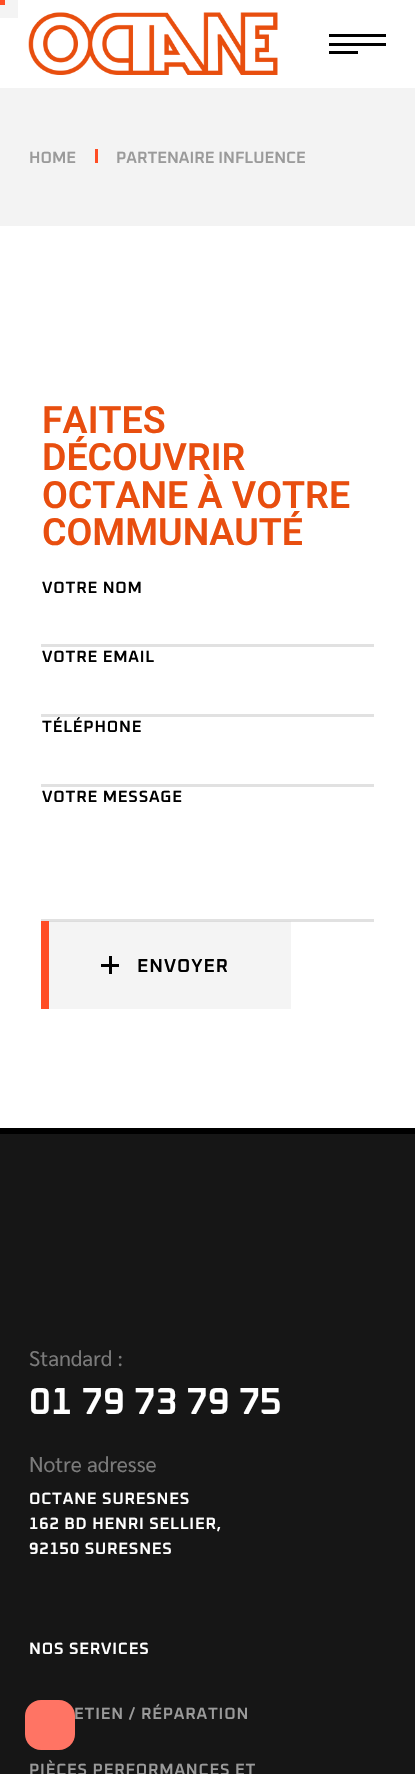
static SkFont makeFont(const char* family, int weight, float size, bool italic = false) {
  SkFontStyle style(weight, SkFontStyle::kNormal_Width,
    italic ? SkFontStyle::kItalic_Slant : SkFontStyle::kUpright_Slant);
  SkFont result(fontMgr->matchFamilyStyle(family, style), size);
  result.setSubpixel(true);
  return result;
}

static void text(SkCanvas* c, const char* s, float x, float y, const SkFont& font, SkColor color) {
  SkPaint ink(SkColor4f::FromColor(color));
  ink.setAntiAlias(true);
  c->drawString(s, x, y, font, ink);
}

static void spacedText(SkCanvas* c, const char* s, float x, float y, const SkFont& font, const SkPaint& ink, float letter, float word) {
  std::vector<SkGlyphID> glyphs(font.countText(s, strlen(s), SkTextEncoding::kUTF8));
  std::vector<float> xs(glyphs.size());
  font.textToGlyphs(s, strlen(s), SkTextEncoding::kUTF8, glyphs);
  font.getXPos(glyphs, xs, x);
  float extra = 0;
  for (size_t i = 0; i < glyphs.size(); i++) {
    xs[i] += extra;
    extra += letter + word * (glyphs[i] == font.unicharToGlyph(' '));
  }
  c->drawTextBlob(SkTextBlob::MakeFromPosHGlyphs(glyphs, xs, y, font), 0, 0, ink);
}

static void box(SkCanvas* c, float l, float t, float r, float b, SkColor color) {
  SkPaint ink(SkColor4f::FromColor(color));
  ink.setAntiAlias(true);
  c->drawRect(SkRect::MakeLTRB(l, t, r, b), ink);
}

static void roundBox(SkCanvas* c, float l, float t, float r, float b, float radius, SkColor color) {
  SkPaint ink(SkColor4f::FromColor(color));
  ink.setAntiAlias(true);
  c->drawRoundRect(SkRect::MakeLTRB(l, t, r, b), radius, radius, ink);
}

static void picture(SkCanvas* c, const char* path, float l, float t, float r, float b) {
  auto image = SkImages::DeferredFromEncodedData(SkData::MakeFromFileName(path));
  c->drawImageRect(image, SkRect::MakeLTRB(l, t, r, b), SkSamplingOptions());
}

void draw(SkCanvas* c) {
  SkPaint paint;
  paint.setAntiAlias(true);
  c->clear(0xffffffff);
  box(c, 49, 922, 291, 1009, 0xfff4f4f4);
  box(c, 0, 0, 18, 18, 0xfff4f4f4);
  box(c, 0, 0, 5, 5, 0xffff4d24);
  picture(c, "img_01.png", 28, 12, 278, 75);
  box(c, 329, 34, 386, 37, 0xff000000);
  box(c, 329, 43, 386, 46, 0xff000000);
  box(c, 329, 51, 358, 54, 0xff000000);
  box(c, 0, 88, 415, 226, 0xfff3f3f3);
  SkFont face1 = makeFont("Oxanium", 600, 16.25f);
  text(c, "HOME", 29, 163, face1, 0xff9a9a9a);
  box(c, 95, 149, 98, 163, 0xffff4d24);
  text(c, "PARTENAIRE INFLUENCE", 116, 163, face1, 0xff9a9a9a);
  SkFont face2 = makeFont("Roboto", 600, 37.5f);
  text(c, "FAITES", 42, 433, face2, 0xffe84e0f);
  text(c, "DÉCOUVRIR", 42, 470, face2, 0xffe84e0f);
  text(c, "OCTANE À VOTRE", 42, 508, face2, 0xffe84e0f);
  text(c, "COMMUNAUTÉ", 42, 545, face2, 0xffe84e0f);
  paint.setColor(0xff000000);
  spacedText(c, "VOTRE NOM", 42, 593, face1, paint, 0.8f, 0);
  box(c, 41, 644, 374, 647, 0xffe1e1e1);
  spacedText(c, "VOTRE EMAIL", 42, 662, face1, paint, 0.8f, 0);
  spacedText(c, "TÉLÉPHONE", 42, 732, face1, paint, 0.8f, 0);
  box(c, 41, 714, 374, 717, 0xffe1e1e1);
  box(c, 41, 784, 374, 787, 0xffe1e1e1);
  spacedText(c, "VOTRE MESSAGE", 42, 802, face1, paint, 0.8f, 0);
  box(c, 41, 919, 374, 922, 0xffe1e1e1);
  box(c, 41, 921, 291, 922, 0xffdddddd);
  box(c, 41, 921, 49, 1009, 0xffff4d24);
  box(c, 109, 956, 112, 974, 0xff000000);
  SkFont face3 = makeFont("Oxanium", 600, 18.75f);
  spacedText(c, "ENVOYER", 137, 972, face3, paint, 1, 0);
  box(c, 101, 964, 119, 967, 0xff000000);
  box(c, 0, 1134, 415, 1774, 0xff161616);
  box(c, 0, 1128, 415, 1134, 0xff000000);
  SkFont face4 = makeFont("Sarabun", 400, 21.25f);
  text(c, "Standard :", 29, 1366, face4, 0xff7b7b7b);
  SkFont face5 = makeFont("Oxanium", 600, 37.5f);
  text(c, "01 79 73 79 75", 29, 1414, face5, 0xffffffff);
  text(c, "Notre adresse", 29, 1472, face4, 0xff7b7b7b);
  paint.setColor(0xffffffff);
  spacedText(c, "OCTANE SURESNES", 29, 1504, face1, paint, 0.8f, 0);
  spacedText(c, "162 BD HENRI SELLIER,", 29, 1529, face1, paint, 0.8f, 0);
  spacedText(c, "92150 SURESNES", 29, 1554, face1, paint, 0.8f, 0);
  spacedText(c, "NOS SERVICES", 29, 1654, face1, paint, 0.8f, 0);
  paint.setColor(0xff9a9a9a);
  spacedText(c, "ETIEN / RÉPARATION", 74, 1719, face1, paint, 0.8f, 0);
  spacedText(c, "PIÈCES PERFORMANCES ET", 29, 1775, face1, paint, 0.8f, 0);
  roundBox(c, 25, 1700, 75, 1750, 16, 0xffff7464);
}
